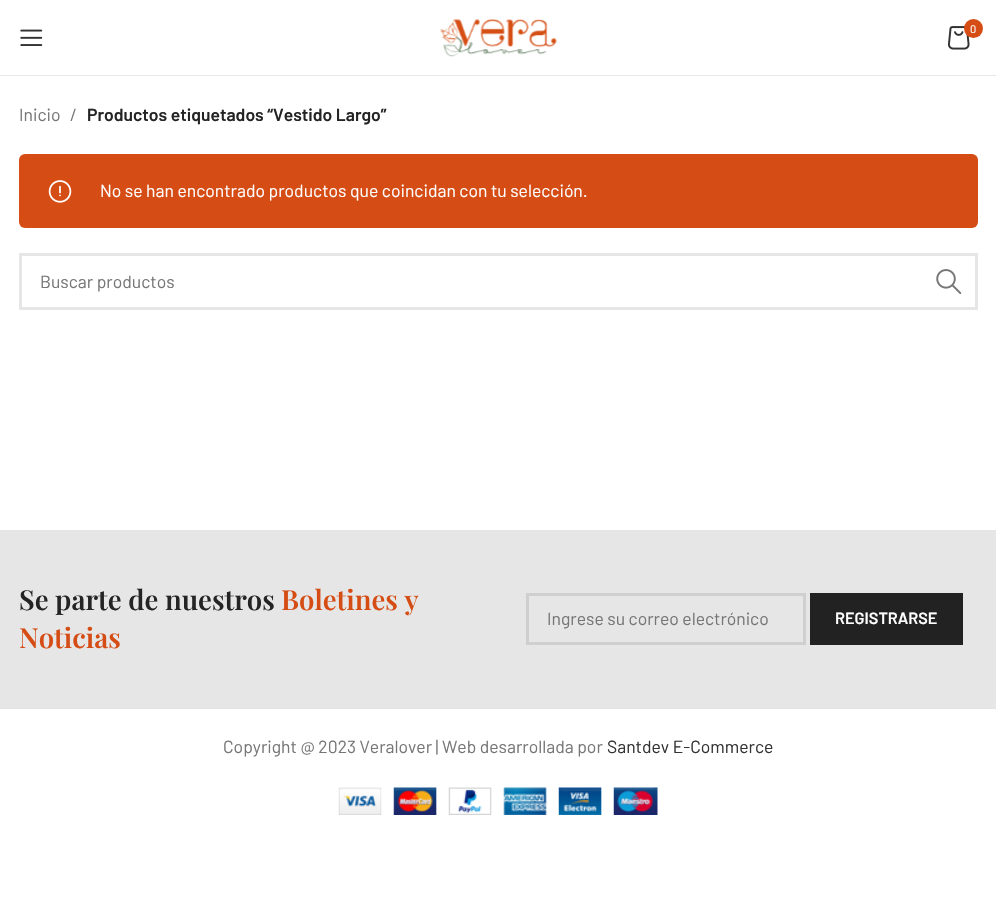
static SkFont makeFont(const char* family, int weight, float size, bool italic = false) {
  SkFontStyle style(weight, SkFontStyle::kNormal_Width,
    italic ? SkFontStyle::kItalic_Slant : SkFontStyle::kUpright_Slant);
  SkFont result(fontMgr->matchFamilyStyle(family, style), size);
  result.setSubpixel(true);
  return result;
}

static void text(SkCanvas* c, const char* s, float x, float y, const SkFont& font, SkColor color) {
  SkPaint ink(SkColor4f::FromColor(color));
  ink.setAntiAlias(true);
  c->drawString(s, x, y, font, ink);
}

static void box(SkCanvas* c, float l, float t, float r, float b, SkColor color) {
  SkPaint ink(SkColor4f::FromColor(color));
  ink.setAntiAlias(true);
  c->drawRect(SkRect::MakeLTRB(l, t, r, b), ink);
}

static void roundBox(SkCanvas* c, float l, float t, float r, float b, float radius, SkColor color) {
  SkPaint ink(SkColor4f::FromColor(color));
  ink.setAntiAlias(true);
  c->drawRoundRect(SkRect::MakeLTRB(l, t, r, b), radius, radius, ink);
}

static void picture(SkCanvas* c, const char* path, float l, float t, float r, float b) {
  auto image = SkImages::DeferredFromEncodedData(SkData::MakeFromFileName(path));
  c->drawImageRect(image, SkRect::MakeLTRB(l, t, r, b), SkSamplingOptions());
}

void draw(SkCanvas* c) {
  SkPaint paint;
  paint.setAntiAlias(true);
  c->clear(0xffffffff);
  box(c, 0, 75, 996, 76, 0xffe8e8e8);
  picture(c, "img_01.png", 20, 29, 43, 46);
  picture(c, "img_02.png", 440, 19, 557, 57);
  picture(c, "img_03.png", 948, 26, 970, 50);
  paint.setColor(0xffd54d15);
  c->drawCircle(973.5f, 28.5f, 9.5f, paint);
  SkFont face1 = makeFont("Barlow", 400, 11);
  text(c, "0", 970, 33, face1, 0xffffffff);
  SkFont face2 = makeFont("Barlow", 400, 17.5f);
  text(c, "Inicio", 19, 121, face2, 0xff767676);
  text(c, "/", 70, 121, face2, 0xff767676);
  SkFont face3 = makeFont("Barlow", 600, 17.5f);
  text(c, "Productos etiquetados “Vestido Largo”", 87, 121, face3, 0xff242424);
  roundBox(c, 19, 154, 978, 228, 6, 0xffd54d15);
  picture(c, "img_04.png", 48, 180, 72, 203);
  text(c, "No se han encontrado productos que coincidan con tu selección.", 100, 197, face2, 0xffffffff);
  paint.setStyle(SkPaint::kStroke_Style);
  paint.setStrokeWidth(3);
  paint.setColor(0xffe6e6e6);
  c->drawRect(SkRect::MakeLTRB(20.5f, 254.5f, 976.5f, 308.5f), paint);
  text(c, "Buscar productos", 40, 288, face2, 0xff767676);
  picture(c, "img_05.png", 936, 269, 962, 294);
  box(c, 0, 530, 996, 708, 0xffe6e6e6);
  SkFont face4 = makeFont("Playfair Display", 600, 27.5f);
  text(c, "Se parte de nuestros", 19, 610, face4, 0xff242424);
  text(c, "Boletines y", 281, 610, face4, 0xffd54d15);
  text(c, "Noticias", 19, 648, face4, 0xffd54d15);
  paint.setColor(0xffcfcfcf);
  c->drawRect(SkRect::MakeLTRB(527.5f, 594.5f, 804.5f, 643.5f), paint);
  text(c, "Ingrese su correo electrónico", 547, 625, face2, 0xff767676);
  box(c, 810, 593, 963, 645, 0xff222222);
  SkFont face5 = makeFont("Barlow", 600, 16.25f);
  text(c, "REGISTRARSE", 835, 624, face5, 0xffffffff);
  box(c, 0, 708, 996, 709, 0xffe4e4e4);
  text(c, "Copyright @ 2023 Veralover | Web desarrollada por", 223, 753, face2, 0xff767676);
  text(c, "Santdev E-Commerce", 607, 753, face2, 0xff333333);
  picture(c, "img_06.png", 338, 787, 658, 815);
}
